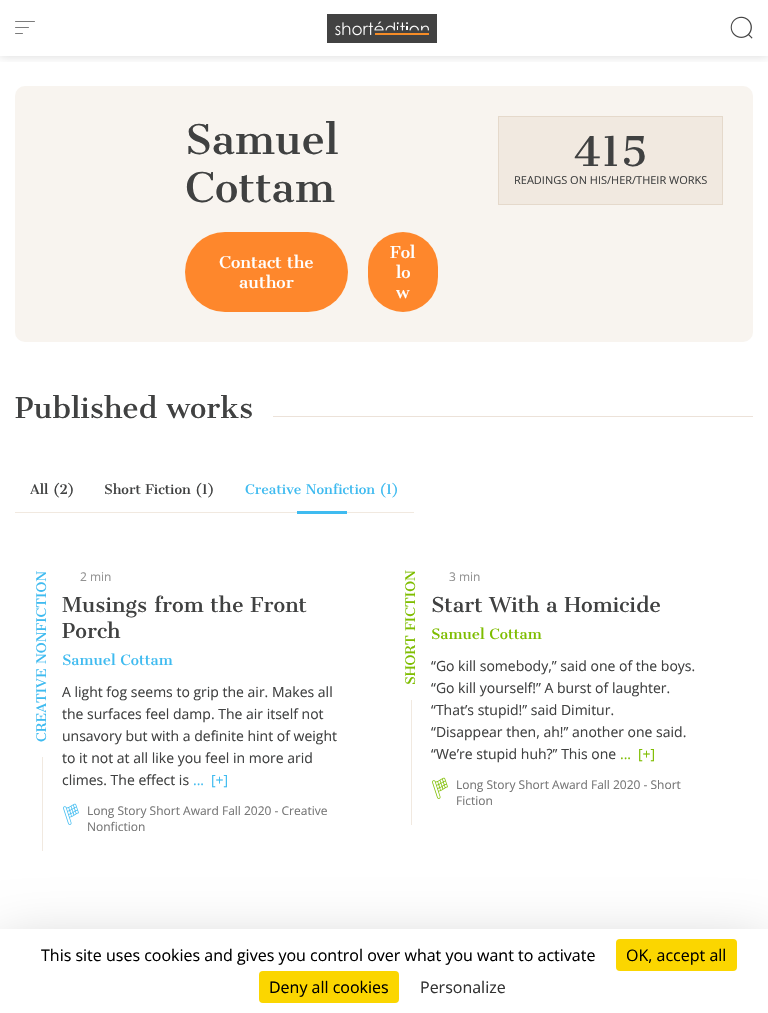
static SkFont makeFont(const char* family, int weight, float size, bool italic = false) {
  SkFontStyle style(weight, SkFontStyle::kNormal_Width,
    italic ? SkFontStyle::kItalic_Slant : SkFontStyle::kUpright_Slant);
  SkFont result(fontMgr->matchFamilyStyle(family, style), size);
  result.setSubpixel(true);
  return result;
}

static void text(SkCanvas* c, const char* s, float x, float y, const SkFont& font, SkColor color) {
  SkPaint ink(SkColor4f::FromColor(color));
  ink.setAntiAlias(true);
  c->drawString(s, x, y, font, ink);
}

static void box(SkCanvas* c, float l, float t, float r, float b, SkColor color) {
  SkPaint ink(SkColor4f::FromColor(color));
  ink.setAntiAlias(true);
  c->drawRect(SkRect::MakeLTRB(l, t, r, b), ink);
}

static void roundBox(SkCanvas* c, float l, float t, float r, float b, float radius, SkColor color) {
  SkPaint ink(SkColor4f::FromColor(color));
  ink.setAntiAlias(true);
  c->drawRoundRect(SkRect::MakeLTRB(l, t, r, b), radius, radius, ink);
}

static void picture(SkCanvas* c, const char* path, float l, float t, float r, float b) {
  auto image = SkImages::DeferredFromEncodedData(SkData::MakeFromFileName(path));
  c->drawImageRect(image, SkRect::MakeLTRB(l, t, r, b), SkSamplingOptions());
}

void draw(SkCanvas* c) {
  SkPaint paint;
  paint.setAntiAlias(true);
  c->clear(0xffffffff);
  c->save();
  c->clipRect(SkRect::MakeLTRB(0, 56, 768, 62));
  paint.setColor(0x26000000);
  paint.setMaskFilter(SkMaskFilter::MakeBlur(kNormal_SkBlurStyle, 5));
  c->drawRect(SkRect::MakeLTRB(0, 0, 768, 56), paint);
  paint.setMaskFilter(nullptr);
  c->restore();
  roundBox(c, 15, 21, 35, 22, 0.5f, 0xff7b7b7b);
  roundBox(c, 15, 27, 29, 28, 0.5f, 0xff7b7b7b);
  roundBox(c, 15, 33, 23, 34, 0.5f, 0xff7b7b7b);
  picture(c, "img_01.png", 327, 14, 437, 43);
  picture(c, "img_02.png", 730, 16, 753, 39);
  roundBox(c, 15, 86, 753, 342, 10, 0xfff8f4ef);
  SkFont face1 = makeFont("Cantata One", 400, 40);
  text(c, "Samuel", 185, 154, face1, 0xff404141);
  text(c, "Cottam", 185, 202, face1, 0xff404141);
  roundBox(c, 185, 232, 348, 312, 40, 0xfffe872c);
  SkFont face2 = makeFont("Cantata One", 400, 16);
  text(c, "Contact the", 219, 268, face2, 0xffffffff);
  text(c, "author", 239, 288, face2, 0xffffffff);
  roundBox(c, 368, 232, 438, 312, 35, 0xfffe872c);
  text(c, "Fol", 390, 258, face2, 0xffffffff);
  text(c, "lo", 396, 278, face2, 0xffffffff);
  text(c, "w", 396, 298, face2, 0xffffffff);
  paint.setColor(0xfff1e9e0);
  c->drawRect(SkRect::MakeLTRB(498.5f, 116.5f, 722.5f, 204.5f), paint);
  paint.setStyle(SkPaint::kStroke_Style);
  paint.setStrokeWidth(1);
  paint.setColor(0xffe5d9cb);
  c->drawRect(SkRect::MakeLTRB(498.5f, 116.5f, 722.5f, 204.5f), paint);
  text(c, "415", 574, 166, face1, 0xff404141);
  SkFont face3 = makeFont("Open Sans", 400, 11);
  text(c, "READINGS ON HIS/HER/THEIR WORKS", 514, 184, face3, 0xff404141);
  box(c, 273, 416, 753, 417, 0xffece2d9);
  SkFont face4 = makeFont("Cantata One", 400, 28);
  text(c, "Published works", 15, 418, face4, 0xff404141);
  box(c, 15, 512, 414, 513, 0xfff1e9e0);
  SkFont face5 = makeFont("Cantata One", 400, 13);
  text(c, "All (2)", 30, 494, face5, 0xff404141);
  text(c, "Short Fiction (1)", 104, 494, face5, 0xff404141);
  text(c, "Creative Nonfiction (1)", 245, 494, face5, 0xff3fbbf0);
  box(c, 297, 511, 347, 514, 0xff3fbbf0);
  c->save();
  c->rotate(-90, 46, 742);
  text(c, "CREATIVE NONFICTION", 46, 742, face5, 0xff3fbbf0);
  c->restore();
  box(c, 42, 757, 43, 851, 0xfff1e9e0);
  SkFont face6 = makeFont("Open Sans", 400, 12);
  text(c, "2 min", 80, 581, face6, 0xff929292);
  SkFont face7 = makeFont("Cantata One", 400, 20);
  text(c, "Musings from the Front", 62, 612, face7, 0xff404141);
  text(c, "Porch", 62, 638, face7, 0xff404141);
  SkFont face8 = makeFont("Cantata One", 400, 14);
  text(c, "Samuel Cottam", 62, 665, face8, 0xff3fbbf0);
  SkFont face9 = makeFont("Open Sans", 400, 14);
  text(c, "A light fog seems to grip the air. Makes all", 62, 697, face9, 0xff404141);
  text(c, "the surfaces feel damp. The air itself not", 62, 719, face9, 0xff404141);
  text(c, "unsavory but with a definite hint of weight", 62, 741, face9, 0xff404141);
  text(c, "to it not at all like you feel in more arid", 62, 763, face9, 0xff404141);
  text(c, "climes. The effect is", 62, 785, face9, 0xff404141);
  text(c, "...", 193, 785, face9, 0xff3fbbf0);
  text(c, "[+]", 211, 785, face9, 0xff3fbbf0);
  picture(c, "img_03.png", 63, 803, 79, 825);
  text(c, "Long Story Short Award Fall 2020 - Creative", 87, 815, face6, 0xff767676);
  text(c, "Nonfiction", 87, 831, face6, 0xff767676);
  c->save();
  c->rotate(-90, 415, 685);
  text(c, "SHORT FICTION", 415, 685, face5, 0xff7ebd00);
  c->restore();
  box(c, 411, 700, 412, 825, 0xfff1e9e0);
  text(c, "3 min", 449, 581, face6, 0xff929292);
  text(c, "Start With a Homicide", 431, 612, face7, 0xff404141);
  text(c, "Samuel Cottam", 431, 639, face8, 0xff7ebd00);
  text(c, "“Go kill somebody,” said one of the boys.", 431, 671, face9, 0xff404141);
  text(c, "“Go kill yourself!” A burst of laughter.", 431, 693, face9, 0xff404141);
  text(c, "“That’s stupid!” said Dimitur.", 431, 715, face9, 0xff404141);
  text(c, "“Disappear then, ah!” another one said.", 431, 737, face9, 0xff404141);
  text(c, "“We’re stupid huh?” This one", 431, 759, face9, 0xff404141);
  text(c, "...", 620, 759, face9, 0xff7ebd00);
  text(c, "[+]", 638, 759, face9, 0xff7ebd00);
  picture(c, "img_04.png", 432, 777, 448, 799);
  text(c, "Long Story Short Award Fall 2020 - Short", 456, 789, face6, 0xff767676);
  text(c, "Fiction", 456, 805, face6, 0xff767676);
  paint.setStyle(SkPaint::kFill_Style);
  paint.setColor(0x40000000);
  paint.setMaskFilter(SkMaskFilter::MakeBlur(kNormal_SkBlurStyle, 30));
  c->drawRect(SkRect::MakeLTRB(0, 949, 768, 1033), paint);
  paint.setMaskFilter(nullptr);
  box(c, 0, 929, 768, 1013, 0xffffffff);
  SkFont face10 = makeFont("Open Sans", 400, 16);
  text(c, "This site uses cookies and gives you control over what you want to activate", 41, 961, face10, 0xff000000);
  roundBox(c, 616, 939, 737, 971, 4, 0xfffbd600);
  text(c, "OK, accept all", 626, 961, face10, 0xff000000);
  roundBox(c, 259, 971, 399, 1003, 4, 0xfffbd600);
  text(c, "Deny all cookies", 269, 993, face10, 0xff000000);
  text(c, "Personalize", 420, 993, face10, 0xff333333);
}
